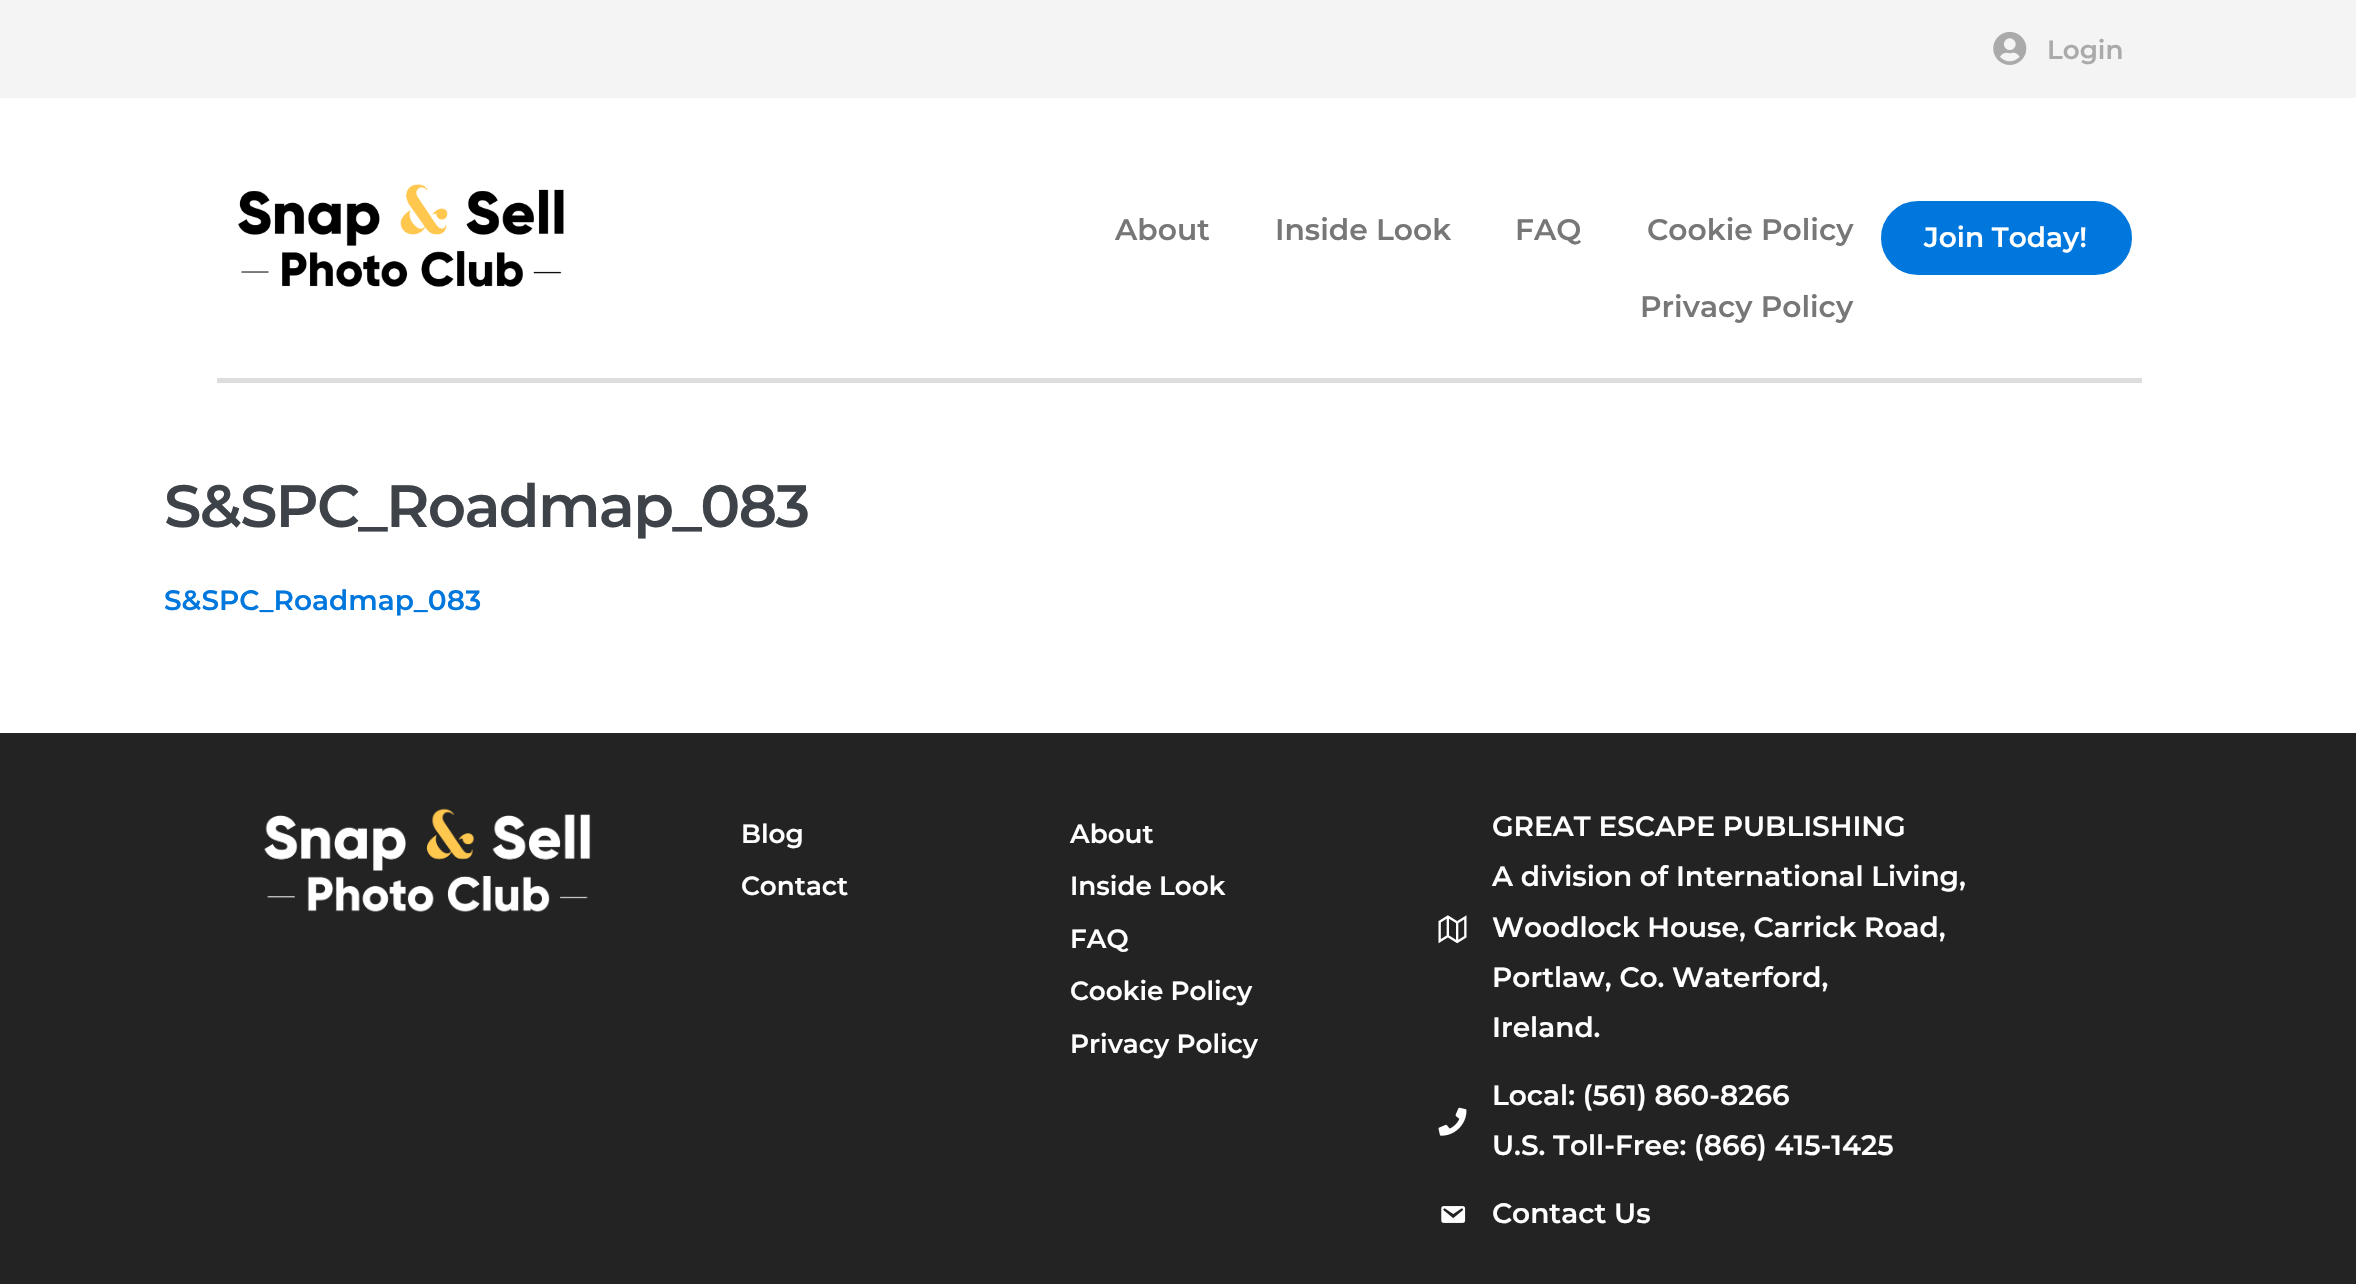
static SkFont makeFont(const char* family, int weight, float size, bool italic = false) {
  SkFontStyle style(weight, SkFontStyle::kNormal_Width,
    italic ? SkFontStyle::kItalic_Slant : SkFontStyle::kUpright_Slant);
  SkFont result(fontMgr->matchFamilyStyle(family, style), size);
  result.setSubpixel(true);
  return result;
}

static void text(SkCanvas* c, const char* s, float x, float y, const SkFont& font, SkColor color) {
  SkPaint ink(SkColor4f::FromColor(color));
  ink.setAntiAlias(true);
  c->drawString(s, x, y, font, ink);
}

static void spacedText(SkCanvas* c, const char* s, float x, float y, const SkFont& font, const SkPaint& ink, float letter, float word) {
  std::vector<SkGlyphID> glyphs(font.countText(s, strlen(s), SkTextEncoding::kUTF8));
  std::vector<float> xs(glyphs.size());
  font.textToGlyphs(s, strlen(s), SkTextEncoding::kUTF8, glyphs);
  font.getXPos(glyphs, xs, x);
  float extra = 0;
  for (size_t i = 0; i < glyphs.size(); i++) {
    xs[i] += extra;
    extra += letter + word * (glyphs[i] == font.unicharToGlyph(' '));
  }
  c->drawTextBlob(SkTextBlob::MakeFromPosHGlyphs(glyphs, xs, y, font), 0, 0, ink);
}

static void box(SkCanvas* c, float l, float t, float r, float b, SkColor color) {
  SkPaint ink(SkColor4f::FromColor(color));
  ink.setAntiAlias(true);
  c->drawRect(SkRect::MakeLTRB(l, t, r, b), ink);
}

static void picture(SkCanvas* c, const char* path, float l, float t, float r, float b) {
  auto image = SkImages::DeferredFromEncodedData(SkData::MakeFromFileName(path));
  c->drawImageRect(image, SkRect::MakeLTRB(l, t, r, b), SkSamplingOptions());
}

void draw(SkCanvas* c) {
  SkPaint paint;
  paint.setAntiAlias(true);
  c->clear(0xffffffff);
  box(c, 0, 0, 2356, 98, 0xfff4f4f4);
  picture(c, "img_01.png", 1993, 31, 2027, 65);
  SkFont face1 = makeFont("Montserrat", 600, 26.25f);
  text(c, "Login", 2047, 59, face1, 0xffaaaaaa);
  picture(c, "img_02.png", 238, 184, 564, 287);
  SkFont face2 = makeFont("Montserrat", 600, 29.75f);
  text(c, "About", 1115, 240, face2, 0xff777777);
  text(c, "Inside Look", 1275, 240, face2, 0xff777777);
  text(c, "FAQ", 1515, 240, face2, 0xff777777);
  text(c, "Cookie Policy", 1647, 240, face2, 0xff777777);
  text(c, "Privacy Policy", 1640, 317, face2, 0xff777777);
  paint.setColor(0xff0077dd);
  c->drawRoundRect(SkRect::MakeLTRB(1882, 202, 2131, 274), 36, 36, paint);
  paint.setStyle(SkPaint::kStroke_Style);
  paint.setStrokeWidth(2);
  c->drawRoundRect(SkRect::MakeLTRB(1882, 202, 2131, 274), 36, 36, paint);
  SkFont face3 = makeFont("Montserrat", 600, 28);
  text(c, "Join Today!", 1924, 247, face3, 0xffffffff);
  box(c, 217, 378, 2142, 383, 0xffdddddd);
  SkFont face4 = makeFont("Montserrat", 600, 59.5f);
  paint.setStyle(SkPaint::kFill_Style);
  paint.setColor(0xff3e4349);
  spacedText(c, "S&SPC_Roadmap_083", 164, 527, face4, paint, -1.75f, 0);
  text(c, "S&SPC_Roadmap_083", 164, 610, face3, 0xff0077dd);
  box(c, 0, 733, 2356, 1284, 0xff232323);
  picture(c, "img_03.png", 264, 808, 591, 912);
  text(c, "Blog", 741, 843, face1, 0xffffffff);
  text(c, "Contact", 741, 895, face1, 0xffffffff);
  text(c, "About", 1070, 843, face1, 0xffffffff);
  text(c, "Inside Look", 1070, 895, face1, 0xffffffff);
  text(c, "FAQ", 1070, 948, face1, 0xffffffff);
  text(c, "Cookie Policy", 1070, 1000, face1, 0xffffffff);
  text(c, "Privacy Policy", 1070, 1053, face1, 0xffffffff);
  picture(c, "img_04.png", 1438, 915, 1467, 944);
  text(c, "GREAT ESCAPE PUBLISHING", 1492, 836, face3, 0xffffffff);
  text(c, "A division of International Living,", 1492, 886, face3, 0xffffffff);
  text(c, "Woodlock House, Carrick Road,", 1492, 937, face3, 0xffffffff);
  text(c, "Portlaw, Co. Waterford,", 1492, 987, face3, 0xffffffff);
  text(c, "Ireland.", 1492, 1037, face3, 0xffffffff);
  picture(c, "img_05.png", 1438, 1107, 1467, 1136);
  text(c, "Local: (561) 860-8266", 1492, 1105, face3, 0xffffffff);
  text(c, "U.S. Toll-Free: (866) 415-1425", 1492, 1155, face3, 0xffffffff);
  picture(c, "img_06.png", 1441, 1206, 1466, 1223);
  text(c, "Contact Us", 1492, 1223, face3, 0xffffffff);
}
